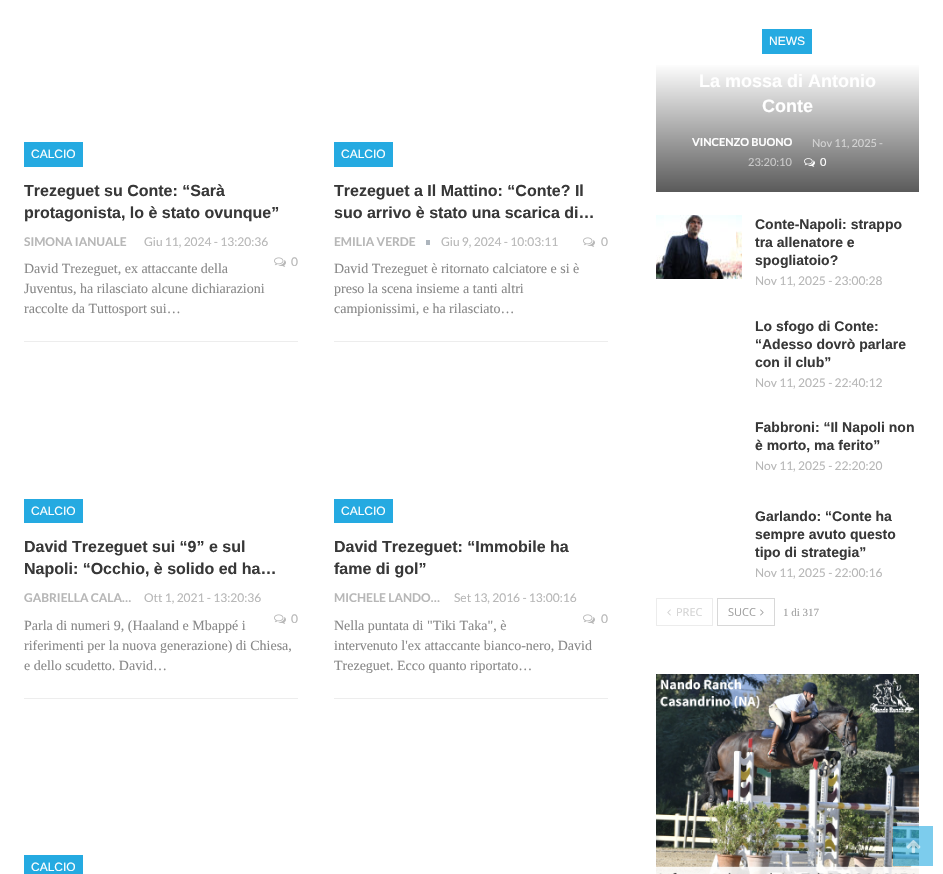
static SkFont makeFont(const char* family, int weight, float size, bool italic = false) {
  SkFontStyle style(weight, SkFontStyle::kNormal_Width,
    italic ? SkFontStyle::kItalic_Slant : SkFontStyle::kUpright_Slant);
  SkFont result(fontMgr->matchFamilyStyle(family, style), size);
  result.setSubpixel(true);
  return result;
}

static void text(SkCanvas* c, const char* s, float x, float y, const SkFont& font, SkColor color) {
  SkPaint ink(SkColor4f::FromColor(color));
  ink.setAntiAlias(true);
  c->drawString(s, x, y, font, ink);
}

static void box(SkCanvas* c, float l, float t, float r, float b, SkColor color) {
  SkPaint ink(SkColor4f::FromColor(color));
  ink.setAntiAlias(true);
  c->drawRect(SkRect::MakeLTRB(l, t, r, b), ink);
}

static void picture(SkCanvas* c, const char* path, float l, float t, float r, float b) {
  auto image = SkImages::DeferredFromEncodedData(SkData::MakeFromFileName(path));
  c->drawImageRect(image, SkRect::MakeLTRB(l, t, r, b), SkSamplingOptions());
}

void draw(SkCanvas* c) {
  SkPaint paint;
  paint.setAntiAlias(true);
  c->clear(0xffffffff);
  box(c, 24, 142, 83, 167, 0xff25aae1);
  SkFont face1 = makeFont("Liberation Sans", 400, 12);
  text(c, "CALCIO", 31, 158, face1, 0xffffffff);
  SkFont face2 = makeFont("Liberation Sans", 700, 16);
  text(c, "Trezeguet su Conte: “Sarà", 24, 196, face2, 0xff383838);
  text(c, "protagonista, lo è stato ovunque”", 24, 218, face2, 0xff383838);
  SkFont face3 = makeFont("Lato", 700, 12);
  text(c, "SIMONA IANUALE", 24, 246, face3, 0xffb7b7b7);
  SkFont face4 = makeFont("Lato", 400, 12);
  text(c, "Giu 11, 2024 - 13:20:36", 144, 246, face4, 0xffb7b7b7);
  picture(c, "img_01.png", 274, 257, 286, 267);
  text(c, "0", 291, 266, face4, 0xffb7b7b7);
  box(c, 24, 341, 298, 342, 0xffededed);
  SkFont face5 = makeFont("Liberation Serif", 400, 14);
  text(c, "David Trezeguet, ex attaccante della", 24, 273, face5, 0xff888888);
  text(c, "Juventus, ha rilasciato alcune dichiarazioni", 24, 293, face5, 0xff888888);
  text(c, "raccolte da Tuttosport sui…", 24, 313, face5, 0xff888888);
  box(c, 334, 142, 393, 167, 0xff25aae1);
  text(c, "CALCIO", 341, 158, face1, 0xffffffff);
  text(c, "Trezeguet a Il Mattino: “Conte? Il", 334, 196, face2, 0xff383838);
  text(c, "suo arrivo è stato una scarica di…", 334, 218, face2, 0xff383838);
  text(c, "EMILIA VERDE", 334, 246, face3, 0xffb7b7b7);
  box(c, 426, 240, 430, 245, 0xffadb5bd);
  text(c, "Giu 9, 2024 - 10:03:11", 441, 246, face4, 0xffb7b7b7);
  picture(c, "img_01.png", 583, 237, 595, 247);
  text(c, "0", 601, 246, face4, 0xffb7b7b7);
  box(c, 334, 341, 608, 342, 0xffededed);
  text(c, "David Trezeguet è ritornato calciatore e si è", 334, 273, face5, 0xff888888);
  text(c, "preso la scena insieme a tanti altri", 334, 293, face5, 0xff888888);
  text(c, "campionissimi, e ha rilasciato…", 334, 313, face5, 0xff888888);
  box(c, 24, 499, 83, 523, 0xff25aae1);
  text(c, "CALCIO", 31, 515, face1, 0xffffffff);
  text(c, "David Trezeguet sui “9” e sul", 24, 552, face2, 0xff383838);
  text(c, "Napoli: “Occhio, è solido ed ha…", 24, 574, face2, 0xff383838);
  text(c, "GABRIELLA CALA…", 24, 602, face3, 0xffb7b7b7);
  text(c, "Ott 1, 2021 - 13:20:36", 144, 602, face4, 0xffb7b7b7);
  picture(c, "img_01.png", 274, 614, 286, 624);
  text(c, "0", 291, 623, face4, 0xffb7b7b7);
  box(c, 24, 698, 298, 699, 0xffededed);
  text(c, "Parla di numeri 9, (Haaland e Mbappé i", 24, 630, face5, 0xff888888);
  text(c, "riferimenti per la nuova generazione) di Chiesa,", 24, 650, face5, 0xff888888);
  text(c, "e dello scudetto. David…", 24, 670, face5, 0xff888888);
  box(c, 334, 499, 393, 523, 0xff25aae1);
  text(c, "CALCIO", 341, 515, face1, 0xffffffff);
  text(c, "David Trezeguet: “Immobile ha", 334, 552, face2, 0xff383838);
  text(c, "fame di gol”", 334, 574, face2, 0xff383838);
  text(c, "MICHELE LANDO…", 334, 602, face3, 0xffb7b7b7);
  text(c, "Set 13, 2016 - 13:00:16", 454, 602, face4, 0xffb7b7b7);
  picture(c, "img_01.png", 583, 614, 595, 624);
  text(c, "0", 601, 623, face4, 0xffb7b7b7);
  box(c, 334, 698, 608, 699, 0xffededed);
  text(c, "Nella puntata di \"Tiki Taka\", è", 334, 630, face5, 0xff888888);
  text(c, "intervenuto l'ex attaccante bianco-nero, David", 334, 650, face5, 0xff888888);
  text(c, "Trezeguet. Ecco quanto riportato…", 334, 670, face5, 0xff888888);
  box(c, 24, 855, 83, 874, 0xff25aae1);
  text(c, "CALCIO", 31, 871, face1, 0xffffffff);
  box(c, 762, 29, 812, 54, 0xff25aae1);
  text(c, "NEWS", 769, 45, face1, 0xffffffff);
  {
    const SkColor colors[] = {0xffffffff, 0xff595959};
    const float stops[] = {0, 1};
    const SkPoint ends[] = {{788, 63}, {788, 193}};
    paint.setShader(SkGradientShader::MakeLinear(ends, colors, stops, 2, SkTileMode::kClamp));
    paint.setAlpha(255);
  }
  c->drawRect(SkRect::MakeLTRB(656, 65, 919, 192), paint);
  SkFont face6 = makeFont("Liberation Sans", 700, 18);
  text(c, "La mossa di Antonio", 699, 87, face6, 0xffffffff);
  text(c, "Conte", 762, 112, face6, 0xffffffff);
  SkFont face7 = makeFont("Lato", 700, 11);
  text(c, "VINCENZO BUONO", 692, 146, face7, 0xffffffff);
  SkFont face8 = makeFont("Lato", 400, 11);
  text(c, "Nov 11, 2025 -", 812, 147, face8, 0xffd3d3d3);
  text(c, "23:20:10", 748, 166, face8, 0xffc9c9c9);
  picture(c, "img_02.png", 804, 158, 815, 167);
  text(c, "0", 820, 166, face8, 0xffffffff);
  picture(c, "img_03.png", 656, 215, 742, 279);
  SkFont face9 = makeFont("Liberation Sans", 700, 14);
  text(c, "Conte-Napoli: strappo", 755, 229, face9, 0xff383838);
  text(c, "tra allenatore e", 755, 247, face9, 0xff383838);
  text(c, "spogliatoio?", 755, 265, face9, 0xff383838);
  text(c, "Nov 11, 2025 - 23:00:28", 755, 285, face4, 0xffb7b7b7);
  text(c, "Lo sfogo di Conte:", 755, 331, face9, 0xff383838);
  text(c, "“Adesso dovrò parlare", 755, 349, face9, 0xff383838);
  text(c, "con il club”", 755, 367, face9, 0xff383838);
  text(c, "Nov 11, 2025 - 22:40:12", 755, 387, face4, 0xffb7b7b7);
  text(c, "Fabbroni: “Il Napoli non", 755, 432, face9, 0xff383838);
  text(c, "è morto, ma ferito”", 755, 450, face9, 0xff383838);
  text(c, "Nov 11, 2025 - 22:20:20", 755, 470, face4, 0xffb7b7b7);
  text(c, "Garlando: “Conte ha", 755, 521, face9, 0xff383838);
  text(c, "sempre avuto questo", 755, 539, face9, 0xff383838);
  text(c, "tipo di strategia”", 755, 557, face9, 0xff383838);
  text(c, "Nov 11, 2025 - 22:00:16", 755, 577, face4, 0xffb7b7b7);
  paint.setStyle(SkPaint::kStroke_Style);
  paint.setStrokeWidth(1);
  paint.setShader(nullptr);
  paint.setColor(0xffececec);
  c->drawRect(SkRect::MakeLTRB(656.5f, 598.5f, 712.5f, 625.5f), paint);
  picture(c, "img_04.png", 667, 609, 671, 616);
  SkFont face10 = makeFont("Open Sans", 400, 11);
  text(c, "PREC", 676, 616, face10, 0xffd3d3d3);
  paint.setColor(0xffd8d8d8);
  c->drawRect(SkRect::MakeLTRB(717.5f, 598.5f, 774.5f, 625.5f), paint);
  text(c, "SUCC", 728, 616, face10, 0xff9e9e9e);
  picture(c, "img_05.png", 760, 609, 764, 616);
  SkFont face11 = makeFont("Liberation Serif", 400, 11);
  text(c, "1 di 317", 783, 616, face11, 0xff9e9e9e);
  picture(c, "img_06.png", 656, 674, 919, 874);
  box(c, 893, 826, 933, 866, 0x9925aae1);
  picture(c, "img_07.png", 906, 840, 921, 854);
}
